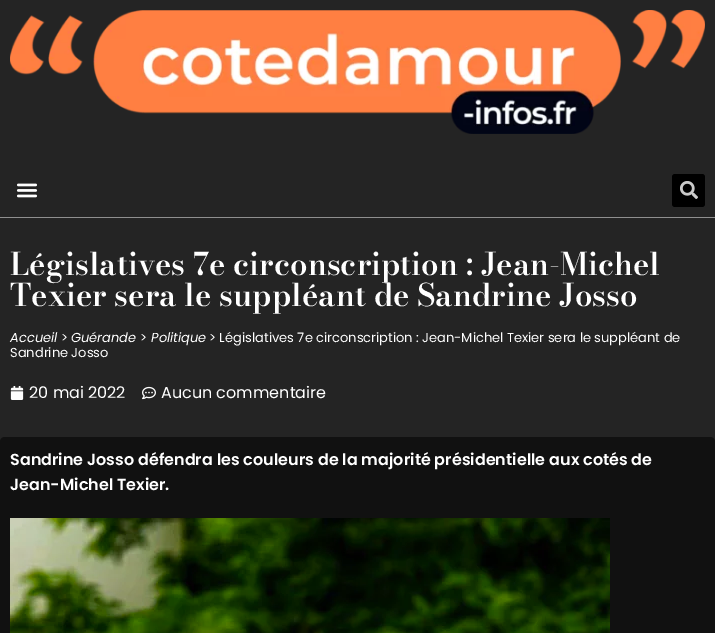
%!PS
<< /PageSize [715 633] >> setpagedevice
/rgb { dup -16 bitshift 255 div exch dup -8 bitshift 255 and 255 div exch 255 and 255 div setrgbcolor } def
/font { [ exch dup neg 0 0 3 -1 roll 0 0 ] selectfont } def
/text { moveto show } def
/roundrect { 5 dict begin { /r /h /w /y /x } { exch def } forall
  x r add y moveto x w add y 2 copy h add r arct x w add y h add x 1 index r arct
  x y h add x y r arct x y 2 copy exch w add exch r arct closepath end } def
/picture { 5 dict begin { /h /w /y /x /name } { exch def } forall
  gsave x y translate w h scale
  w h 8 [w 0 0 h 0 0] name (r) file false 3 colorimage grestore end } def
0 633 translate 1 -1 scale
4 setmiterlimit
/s1 { /BodoniModa-SemiBold 31 font 16#FFFFFF rgb } def
/s2 { /Poppins-Italic 13 font 16#FFFFFF rgb } def
/s3 { /Poppins-Regular 13 font 16#FFFFFF rgb } def
/s4 { /Poppins-Regular 16 font 16#FFFFFF rgb } def
/s5 { /Poppins-SemiBold 16 font 16#FFFFFF rgb } def
16#242424 rgb
0 0 715 633 rectfill
(pic1.raw) 10 10 695 124 picture
16#8F8F8F rgb
0 217 715 1 rectfill
(pic2.raw) 16 183 22 15 picture
16#000000 rgb
672 174 33 33 3 roundrect fill
(pic3.raw) 680 181 18 18 picture
s1
(Législatives 7e circonscription : Jean-Michel) 10 275 text
(Texier sera le suppléant de Sandrine Josso) 10 306 text
s2
(Accueil) 10 342 text
s3
(>) 61 342 text
s2
(Guérande) 71 342 text
s3
(>) 140 342 text
s2
(Politique) 151 342 text
s3
(> Législatives 7e circonscription : Jean-Michel Texier sera le suppléant de) 209 342 text
(Sandrine Josso) 10 357 text
(pic4.raw) 10 386 14 14 picture
s4
(20 mai 2022) 29 398 text
(pic5.raw) 142 386 14 14 picture
(Aucun commentaire) 161 398 text
16#111111 rgb
5 437 moveto 710 437 lineto 713 437 715 439 715 442 curveto 715 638 lineto 0 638 lineto 0 442 lineto 0 439 2 437 5 437 curveto closepath fill
s5
(Sandrine Josso défendra les couleurs de la majorité présidentielle aux cotés de) 10 465 text
(Jean-Michel Texier.) 10 490 text
(pic6.raw) 10 518 600 115 picture
showpage
